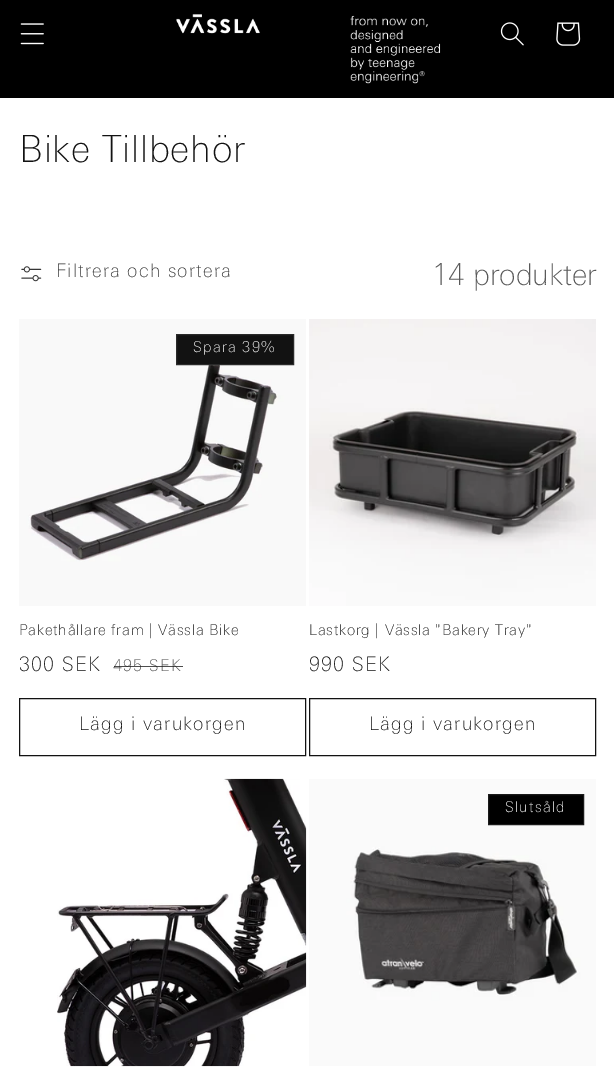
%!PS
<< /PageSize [614 1082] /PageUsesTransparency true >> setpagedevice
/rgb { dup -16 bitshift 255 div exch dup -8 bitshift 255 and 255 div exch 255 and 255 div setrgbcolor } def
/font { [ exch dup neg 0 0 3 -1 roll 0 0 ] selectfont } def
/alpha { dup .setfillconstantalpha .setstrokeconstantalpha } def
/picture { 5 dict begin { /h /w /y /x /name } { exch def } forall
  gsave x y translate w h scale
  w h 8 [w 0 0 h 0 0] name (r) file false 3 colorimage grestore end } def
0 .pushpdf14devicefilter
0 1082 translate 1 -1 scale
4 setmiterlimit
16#FFFFFF rgb
0 0 614 1082 rectfill
16#000000 rgb
0 0 614 98 rectfill
(pic1.raw) 20 23 24 22 picture
(pic2.raw) 176 14 265 70 picture
(pic3.raw) 500 22 24 24 picture
(pic4.raw) 556 22 25 24 picture
/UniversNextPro-Thin 37.5 font
16#121212 rgb
19 162 moveto 0.75 0 (Bike Tillbehör) ashow
(pic5.raw) 21 266 21 16 picture
/UniversNextPro-Thin 18.75 font
16#363636 rgb
56 277 moveto 1.25 0 (Filtrera och sortera) ashow
/UniversNextPro-Thin 30 font
16#595959 rgb
432 285 moveto -0.1 0 (14 produkter) ashow
(pic6.raw) 19 319 287 287 picture
16#121212 rgb
176.5 334.5 moveto 293.5 334.5 lineto 293.5 364.5 lineto 176.5 364.5 lineto closepath gsave fill grestore
16#2A2A2A rgb
stroke
/UniversNextPro-Thin 15 font
16#FFFFFF rgb
193 352 moveto 1.25 0 (Spara 39%) ashow
16#121212 rgb
19 635 moveto 0.75 0 (Pakethållare fram | Vässla Bike) ashow
/UniversNextPro-Thin 20 font
19 671 moveto 1.25 0 (300 SEK) ashow
/UniversNextPro-Thin 16.25 font
16#4D4D4D rgb
113 671 moveto 1.25 0 (495 SEK) ashow
0.75 alpha
16#121212 rgb
114 666 69 1 rectfill
1 alpha
19.5 698.5 286 57 rectstroke
/UniversNextPro-Thin 18.75 font
79 730 moveto 1.25 0 (Lägg i varukorgen) ashow
(pic7.raw) 309 319 287 287 picture
/UniversNextPro-Thin 15 font
309 635 moveto 0.75 0 (Lastkorg | Vässla "Bakery Tray") ashow
/UniversNextPro-Thin 20 font
309 671 moveto 1.25 0 (990 SEK) ashow
309.5 698.5 286 57 rectstroke
/UniversNextPro-Thin 18.75 font
369 730 moveto 1.25 0 (Lägg i varukorgen) ashow
(pic8.raw) 19 778 288 289 picture
(pic9.raw) 309 779 287 287 picture
16#000000 rgb
488.5 794.5 moveto 583.5 794.5 lineto 583.5 824.5 lineto 488.5 824.5 lineto closepath gsave fill grestore
16#1A1A1A rgb
stroke
/UniversNextPro-Thin 15 font
16#FFFFFF rgb
505 812 moveto 1.25 0 (Slutsåld) ashow
.poppdf14devicefilter showpage
